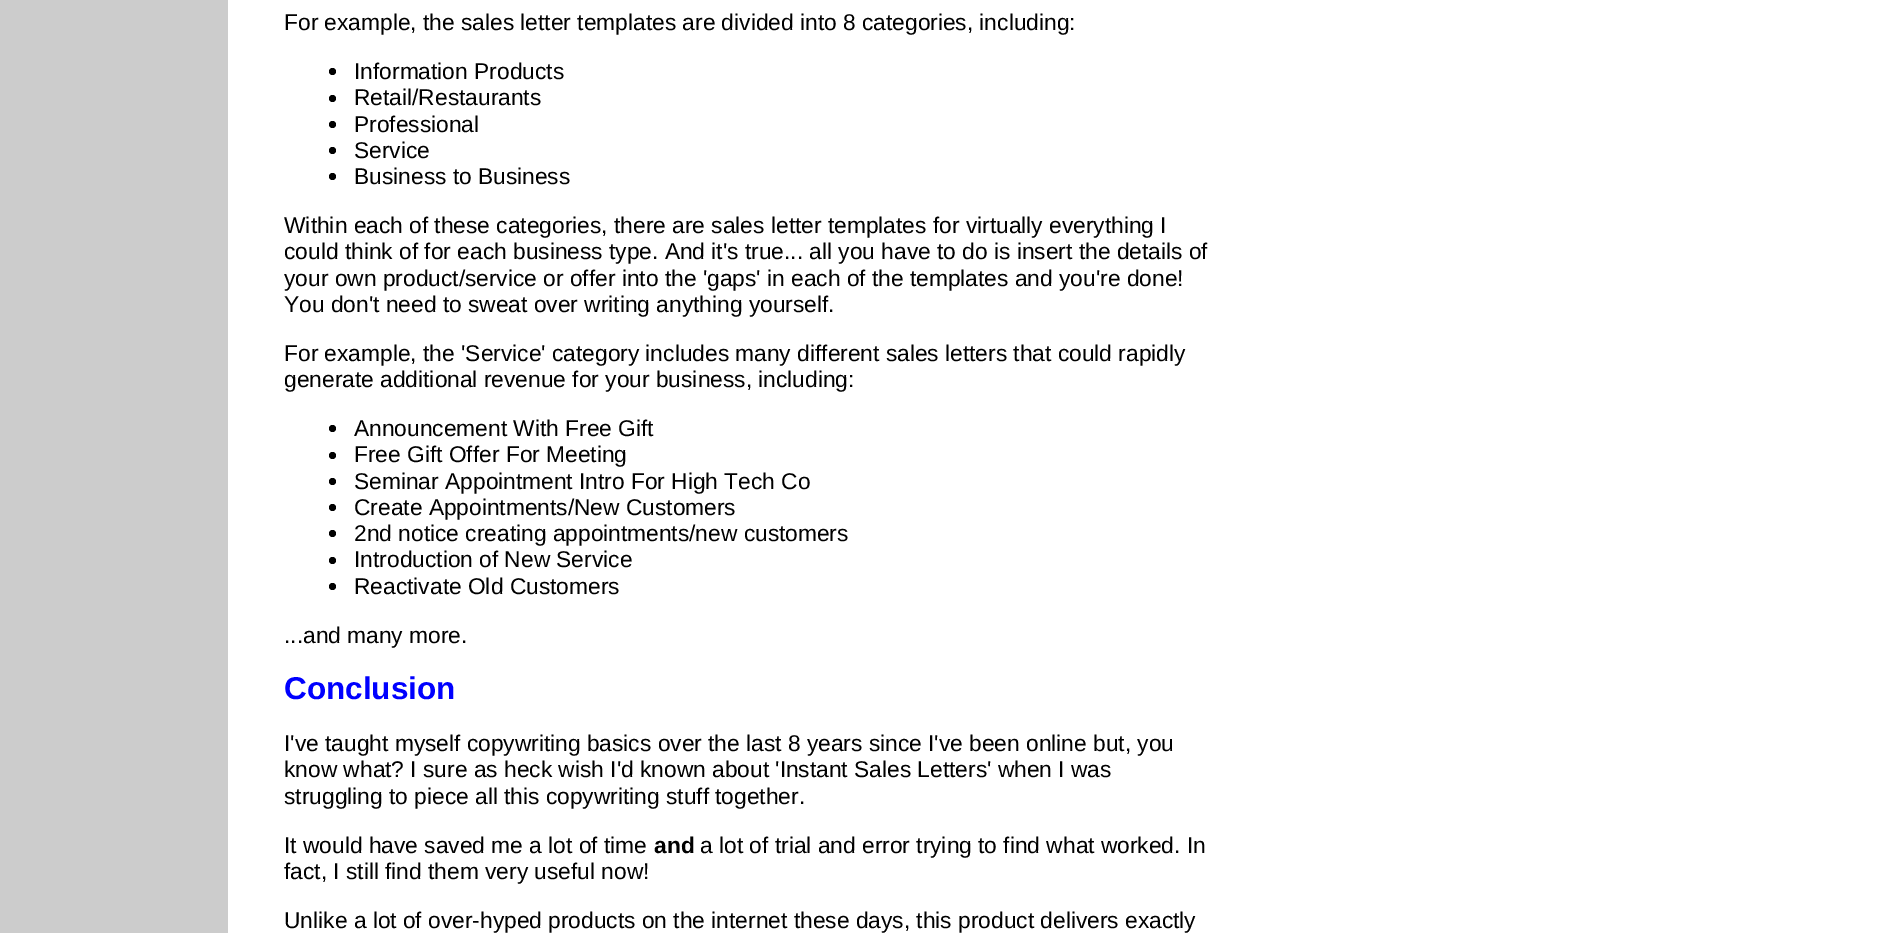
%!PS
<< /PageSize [1878 933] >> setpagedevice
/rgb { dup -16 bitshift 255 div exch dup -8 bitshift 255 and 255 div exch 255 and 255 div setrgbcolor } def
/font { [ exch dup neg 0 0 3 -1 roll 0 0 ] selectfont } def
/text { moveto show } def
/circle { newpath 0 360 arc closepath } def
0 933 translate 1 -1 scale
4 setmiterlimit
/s1 { /LiberationSans-Regular 22.75 font 16#000000 rgb } def
/s2 { /LiberationSans-Bold 31.5 font 16#0000FF rgb } def
/s3 { /LiberationSans-Bold 22.75 font 16#000000 rgb } def
16#FFFFFF rgb
0 0 1878 933 rectfill
16#CCCCCC rgb
0 0 228 933 rectfill
s1
(For example, the sales letter templates are divided into 8 categories, including:) 284 30 text
332.5 71.5 3.5 circle fill
(Information Products) 354 79 text
332.5 98.5 3.5 circle fill
(Retail/Restaurants) 354 105 text
332.5 124.5 3.5 circle fill
(Professional) 354 132 text
332.5 150.5 3.5 circle fill
(Service) 354 158 text
332.5 176.5 3.5 circle fill
(Business to Business) 354 184 text
(Within each of these categories, there are sales letter templates for virtually everything I) 284 233 text
(could think of for each business type. And it's true... all you have to do is insert the details of) 284 259 text
(your own product/service or offer into the 'gaps' in each of the templates and you're done!) 284 286 text
(You don't need to sweat over writing anything yourself.) 284 312 text
(For example, the 'Service' category includes many different sales letters that could rapidly) 284 361 text
(generate additional revenue for your business, including:) 284 387 text
332.5 428.5 3.5 circle fill
(Announcement With Free Gift) 354 436 text
332.5 455.5 3.5 circle fill
(Free Gift Offer For Meeting) 354 462 text
332.5 481.5 3.5 circle fill
(Seminar Appointment Intro For High Tech Co) 354 489 text
332.5 507.5 3.5 circle fill
(Create Appointments/New Customers) 354 515 text
332.5 533.5 3.5 circle fill
(2nd notice creating appointments/new customers) 354 541 text
332.5 560.5 3.5 circle fill
(Introduction of New Service) 354 567 text
332.5 586.5 3.5 circle fill
(Reactivate Old Customers) 354 594 text
(...and many more.) 284 643 text
s2
(Conclusion) 284 699 text
s1
(I've taught myself copywriting basics over the last 8 years since I've been online but, you) 284 751 text
(know what? I sure as heck wish I'd known about 'Instant Sales Letters' when I was) 284 777 text
(struggling to piece all this copywriting stuff together.) 284 804 text
(It would have saved me a lot of time) 284 853 text
s3
(and) 654 853 text
s1
(a lot of trial and error trying to find what worked. In) 700 853 text
(fact, I still find them very useful now!) 284 879 text
(Unlike a lot of over-hyped products on the internet these days, this product delivers exactly) 284 928 text
showpage
